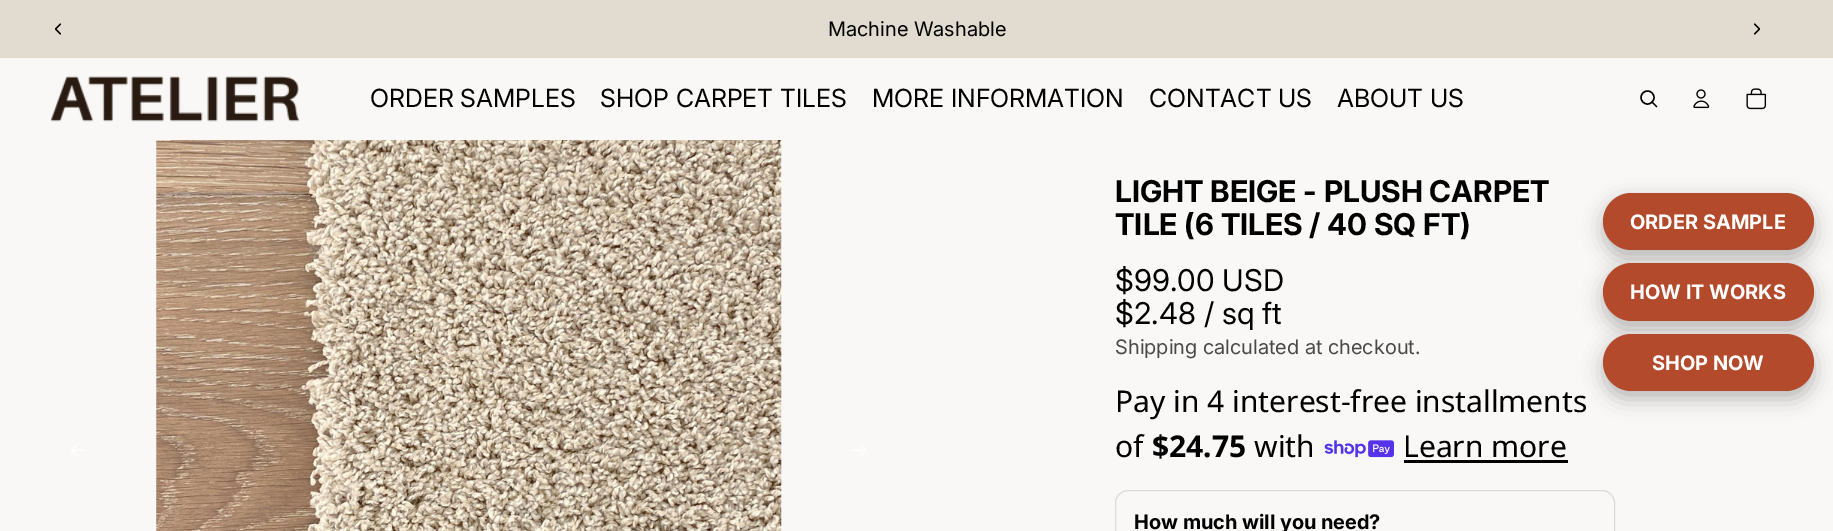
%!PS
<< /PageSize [1833 531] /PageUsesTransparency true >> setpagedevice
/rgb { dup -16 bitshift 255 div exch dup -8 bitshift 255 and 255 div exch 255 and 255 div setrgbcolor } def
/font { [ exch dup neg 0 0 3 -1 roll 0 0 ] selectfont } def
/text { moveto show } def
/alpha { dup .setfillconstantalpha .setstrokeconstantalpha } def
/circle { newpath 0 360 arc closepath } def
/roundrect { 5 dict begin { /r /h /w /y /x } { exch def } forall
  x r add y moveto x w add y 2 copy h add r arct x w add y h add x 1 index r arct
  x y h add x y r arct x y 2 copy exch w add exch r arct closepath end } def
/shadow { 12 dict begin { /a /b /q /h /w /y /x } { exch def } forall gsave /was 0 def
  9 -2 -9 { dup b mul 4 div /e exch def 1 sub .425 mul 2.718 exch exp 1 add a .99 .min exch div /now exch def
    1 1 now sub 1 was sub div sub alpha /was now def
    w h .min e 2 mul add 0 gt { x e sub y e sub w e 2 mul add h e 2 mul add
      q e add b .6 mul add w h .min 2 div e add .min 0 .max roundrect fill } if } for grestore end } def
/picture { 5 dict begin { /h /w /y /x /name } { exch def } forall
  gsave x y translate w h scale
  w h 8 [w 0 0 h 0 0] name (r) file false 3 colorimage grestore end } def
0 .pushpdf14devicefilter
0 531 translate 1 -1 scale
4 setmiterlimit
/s1 { /Inter-Regular 20 font 16#000000 rgb } def
/s2 { /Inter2-Regular 25 font 16#000000 rgb } def
/s3 { /Inter-Bold 30 font 16#000000 rgb } def
/s4 { /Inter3-Regular 30 font 16#000000 rgb } def
/s5 { /Inter-Regular 20 font 16#4B4A4A rgb } def
/s6 { /NotoSans-Regular 30 font 16#000000 rgb } def
/s7 { /NotoSans-Bold 30 font 16#000000 rgb } def
/s8 { /Inter2-Bold 20 font 16#000000 rgb } def
/s9 { /Inter2-Bold 20 font 16#FFFFFF rgb } def
16#F9F8F6 rgb
0 0 1833 531 rectfill
16#E1DBD0 rgb
0 0 1833 58 rectfill
s1
(Machine Washable) 828 36 text
1.2 setlinewidth
1 setlinecap
1 setlinejoin
60.5 24 moveto 55.5 29 lineto 60.5 34 lineto stroke
1754.5 24 moveto 1759.5 29 lineto 1754.5 34 lineto stroke
(pic1.raw) 50 76 250 46 picture
s2
(ORDER SAMPLES) 370 107 text
(SHOP CARPET TILES) 600 107 text
(MORE INFORMATION) 872 107 text
(CONTACT US) 1149 107 text
(ABOUT US) 1337 107 text
1.4 setlinewidth
0 setlinecap
0 setlinejoin
1647.5 97.5 6.5 circle stroke
1 setlinecap
1 setlinejoin
1652 102 moveto 1656.5 106.5 lineto stroke
(pic2.raw) 1693 89 17 20 picture
(pic3.raw) 1746 88 21 22 picture
(pic4.raw) 156 140 626 391 picture
16#FFFFFF rgb
1.2 setlinewidth
85.5 450 moveto 71.5 450 lineto 71.5 450 moveto 76.5 445 lineto 71.5 450 moveto 76.5 455 lineto stroke
851.5 450 moveto 866 450 lineto 866 450 moveto 861 445 lineto 866 450 moveto 861 455 lineto stroke
s3
(LIGHT BEIGE - PLUSH CARPET) 1115 202 text
(TILE \(6 TILES / 40 SQ FT\)) 1115 235 text
s4
($99.00 USD) 1115 291 text
($2.48 / sq ft) 1115 324 text
s5
(Shipping calculated at checkout.) 1115 354 text
s6
(Pay in 4 interest-free installments) 1115 412 text
(of) 1115 457 text
s7
($24.75) 1152 457 text
s6
(with) 1254 457 text
(pic5.raw) 1324 440 70 18 picture
(Learn more) 1403 457 text
1404 460 164 3 rectfill
16#DBDAD8 rgb
1 setlinewidth
0 setlinecap
0 setlinejoin
1115.5 490.5 499 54 12.5 roundrect stroke
s8
(How much will you need?) 1134 529 text
1603 200 211 58 29 10 0.25 shadow
16#B24A2B rgb
1603 193 211 57 28.5 roundrect fill
s9
(ORDER SAMPLE) 1630 229 text
16#000000 rgb
1603 270 211 59 29.5 10 0.25 shadow
16#B24A2B rgb
1603 263 211 58 29 roundrect fill
s9
(HOW IT WORKS) 1630 299 text
16#000000 rgb
1603 341 211 58 29 10 0.25 shadow
16#B24A2B rgb
1603 334 211 57 28.5 roundrect fill
s9
(SHOP NOW) 1652 370 text
.poppdf14devicefilter showpage
